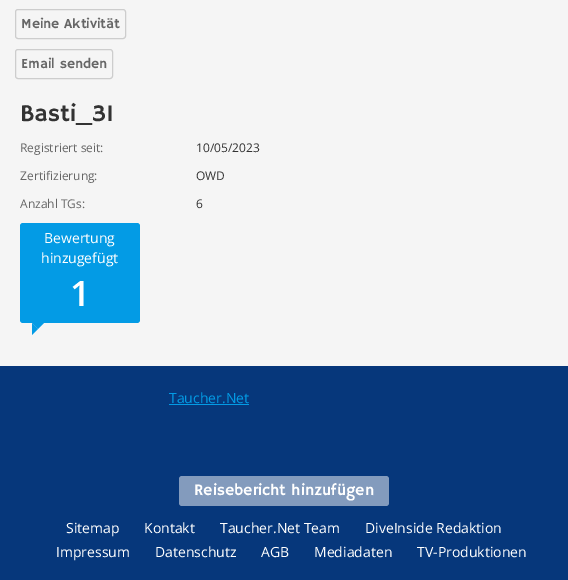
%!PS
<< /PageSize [568 580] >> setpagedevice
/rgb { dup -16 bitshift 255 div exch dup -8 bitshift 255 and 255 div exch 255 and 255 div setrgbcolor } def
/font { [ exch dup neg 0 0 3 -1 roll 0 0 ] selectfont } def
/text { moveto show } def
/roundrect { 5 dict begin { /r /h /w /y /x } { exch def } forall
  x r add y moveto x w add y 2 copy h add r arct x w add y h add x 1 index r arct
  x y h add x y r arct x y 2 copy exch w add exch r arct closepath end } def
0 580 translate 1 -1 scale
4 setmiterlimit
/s1 { /HammersmithOne-Regular 14 font 16#666666 rgb } def
/s2 { /HammersmithOne-Regular 24 font 16#333333 rgb } def
/s3 { /OpenSans-Regular 12 font 16#666666 rgb } def
/s4 { /OpenSans-Regular 12 font 16#333333 rgb } def
/s5 { /OpenSans-Regular 14 font 16#FFFFFF rgb } def
/s6 { /OpenSans-SemiBold 35 font 16#FFFFFF rgb } def
/s7 { /OpenSans-Regular 14 font 16#039BE5 rgb } def
/s8 { /HammersmithOne-Regular 16 font 16#FFFFFF rgb } def
16#F5F5F5 rgb
0 0 568 580 rectfill
16#CDCDCD rgb
15.5 9.5 110 29 2.5 roundrect stroke
s1
(Meine Aktivität) 21 28 text
16#CDCDCD rgb
15.5 49.5 97 29 2.5 roundrect stroke
s1
(Email senden) 21 68 text
s2
(Basti_31) 20 121 text
s3
(Registriert seit:) 20 152 text
s4
(10/05/2023) 196 152 text
s3
(Zertifizierung:) 20 180 text
s4
(OWD) 196 180 text
s3
(Anzahl TGs:) 20 208 text
s4
(6) 196 208 text
16#039BE5 rgb
20 223 120 100 3 roundrect fill
s5
(Bewertung) 44 243 text
(hinzugefügt) 41 263 text
s6
(1) 70 306 text
16#039BE5 rgb
32 323 moveto 44 323 lineto 38 329 lineto closepath fill
32 335 moveto 32 323 lineto 38 329 lineto closepath fill
16#06377B rgb
0 366 568 214 rectfill
s7
(Taucher.Net) 169 403 text
169 404 80 1 rectfill
16#839BBD rgb
179 476 210 30 3 roundrect fill
s8
(Reisebericht hinzufügen) 194 495 text
s5
(Sitemap) 66 533 text
(Kontakt) 144 533 text
(Taucher.Net Team) 220 533 text
(DiveInside Redaktion) 365 533 text
(Impressum) 56 557 text
(Datenschutz) 155 557 text
(AGB) 261 557 text
(Mediadaten) 314 557 text
(TV-Produktionen) 417 557 text
showpage
